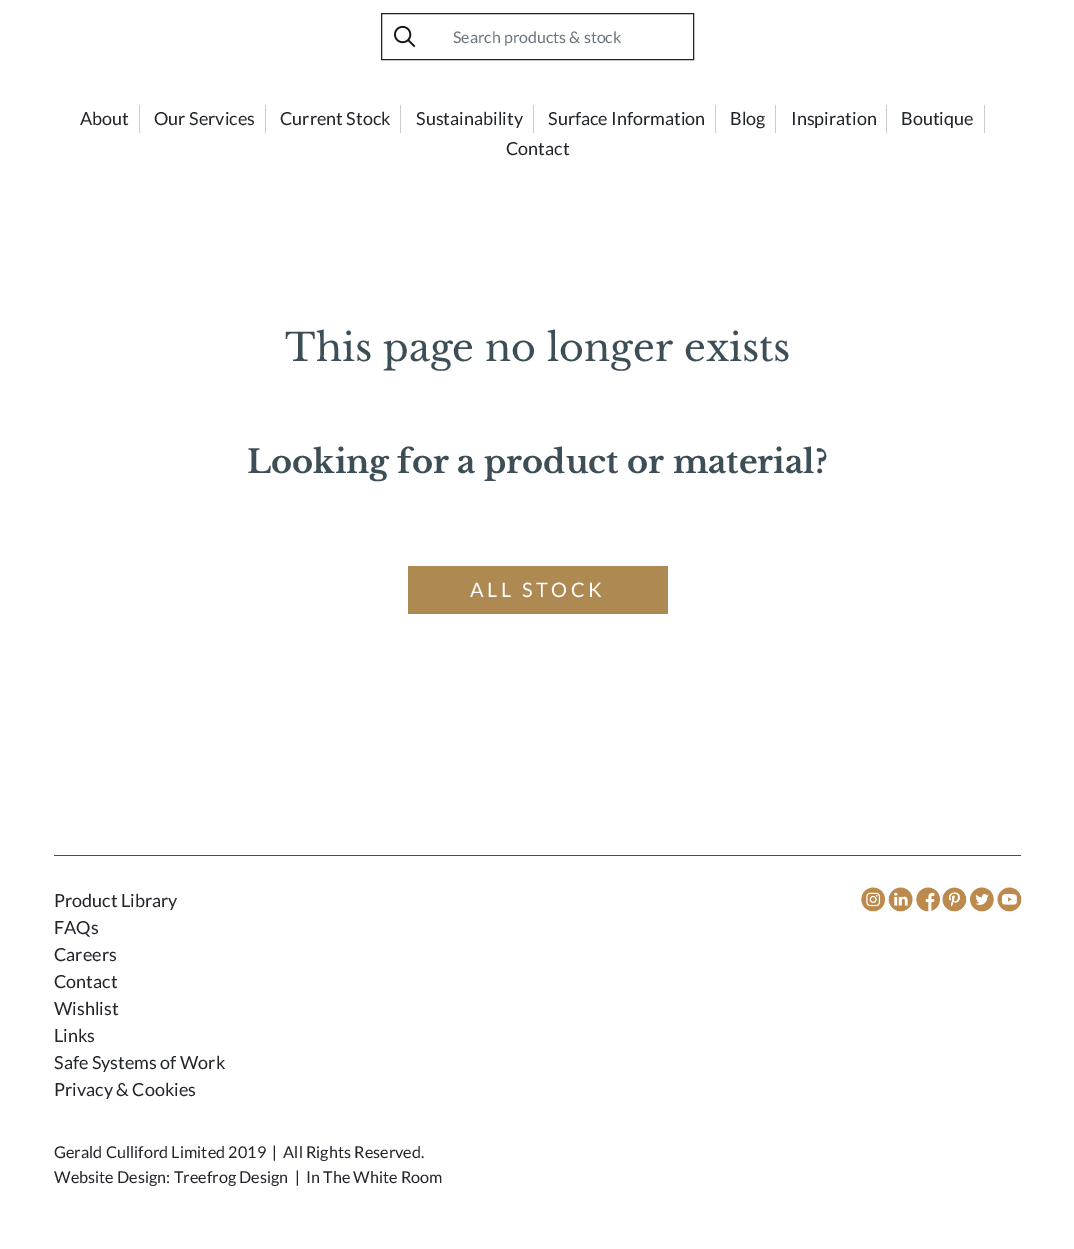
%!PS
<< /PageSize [1074 1249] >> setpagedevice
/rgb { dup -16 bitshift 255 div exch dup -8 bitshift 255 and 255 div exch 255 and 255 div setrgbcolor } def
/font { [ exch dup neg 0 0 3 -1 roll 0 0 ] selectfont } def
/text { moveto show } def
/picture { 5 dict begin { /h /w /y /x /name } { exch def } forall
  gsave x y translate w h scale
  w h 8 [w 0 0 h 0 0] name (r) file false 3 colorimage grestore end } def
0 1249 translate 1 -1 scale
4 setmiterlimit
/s1 { /Lato-Regular 16 font 16#6C757D rgb } def
/s2 { /Lato-Regular 18 font 16#23252C rgb } def
/s3 { /LibreBaskerville-Regular 38 font 16#3D4E56 rgb } def
/s4 { /LibreBaskerville-Bold 32 font 16#3D4E56 rgb } def
/s5 { /Lato-Regular 16.25 font 16#23252C rgb } def
16#FFFFFF rgb
0 0 1074 1249 rectfill
16#222222 rgb
381.5 13.5 312 46 rectstroke
(pic1.raw) 394 25 22 23 picture
s1
(Search products & stock) 453 43 text
16#CCCCCC rgb
139 105 1 28 rectfill
s2
(About) 80 125 text
16#CCCCCC rgb
265 105 1 28 rectfill
s2
(Our Services) 154 125 text
16#CCCCCC rgb
400 105 1 28 rectfill
s2
(Current Stock) 280 125 text
16#CCCCCC rgb
533 105 1 28 rectfill
s2
(Sustainability) 416 125 text
16#CCCCCC rgb
715 105 1 28 rectfill
s2
(Surface Information) 548 125 text
16#CCCCCC rgb
775 105 1 28 rectfill
s2
(Blog) 730 125 text
16#CCCCCC rgb
886 105 1 28 rectfill
s2
(Inspiration) 791 125 text
16#CCCCCC rgb
984 105 1 28 rectfill
s2
(Boutique) 901 125 text
(Contact) 506 155 text
s3
(This page no longer exists) 285 361 text
s4
(Looking for a product or material?) 247 473 text
16#AE8952 rgb
408 566 260 48 rectfill
/Lato-Regular 20 font
16#FFFFFF rgb
470 597 moveto 3.5 0 (ALL STOCK) ashow
16#444F56 rgb
54 855 967 1 rectfill
s2
(Product Library) 54 907 text
(FAQs) 54 934 text
(Careers) 54 961 text
(Contact) 54 988 text
(Wishlist) 54 1015 text
(Links) 54 1042 text
(Safe Systems of Work) 54 1069 text
(Privacy & Cookies) 54 1096 text
s5
(Gerald Culliford Limited 2019  |  All Rights Reserved.) 54 1158 text
(Website Design: Treefrog Design) 54 1183 text
(|) 295 1183 text
(In The White Room) 306 1183 text
(pic2.raw) 861 887 24 25 picture
(pic3.raw) 888 887 25 25 picture
(pic4.raw) 916 887 24 25 picture
(pic5.raw) 942 887 25 25 picture
(pic6.raw) 970 887 24 25 picture
(pic7.raw) 997 887 25 25 picture
showpage
